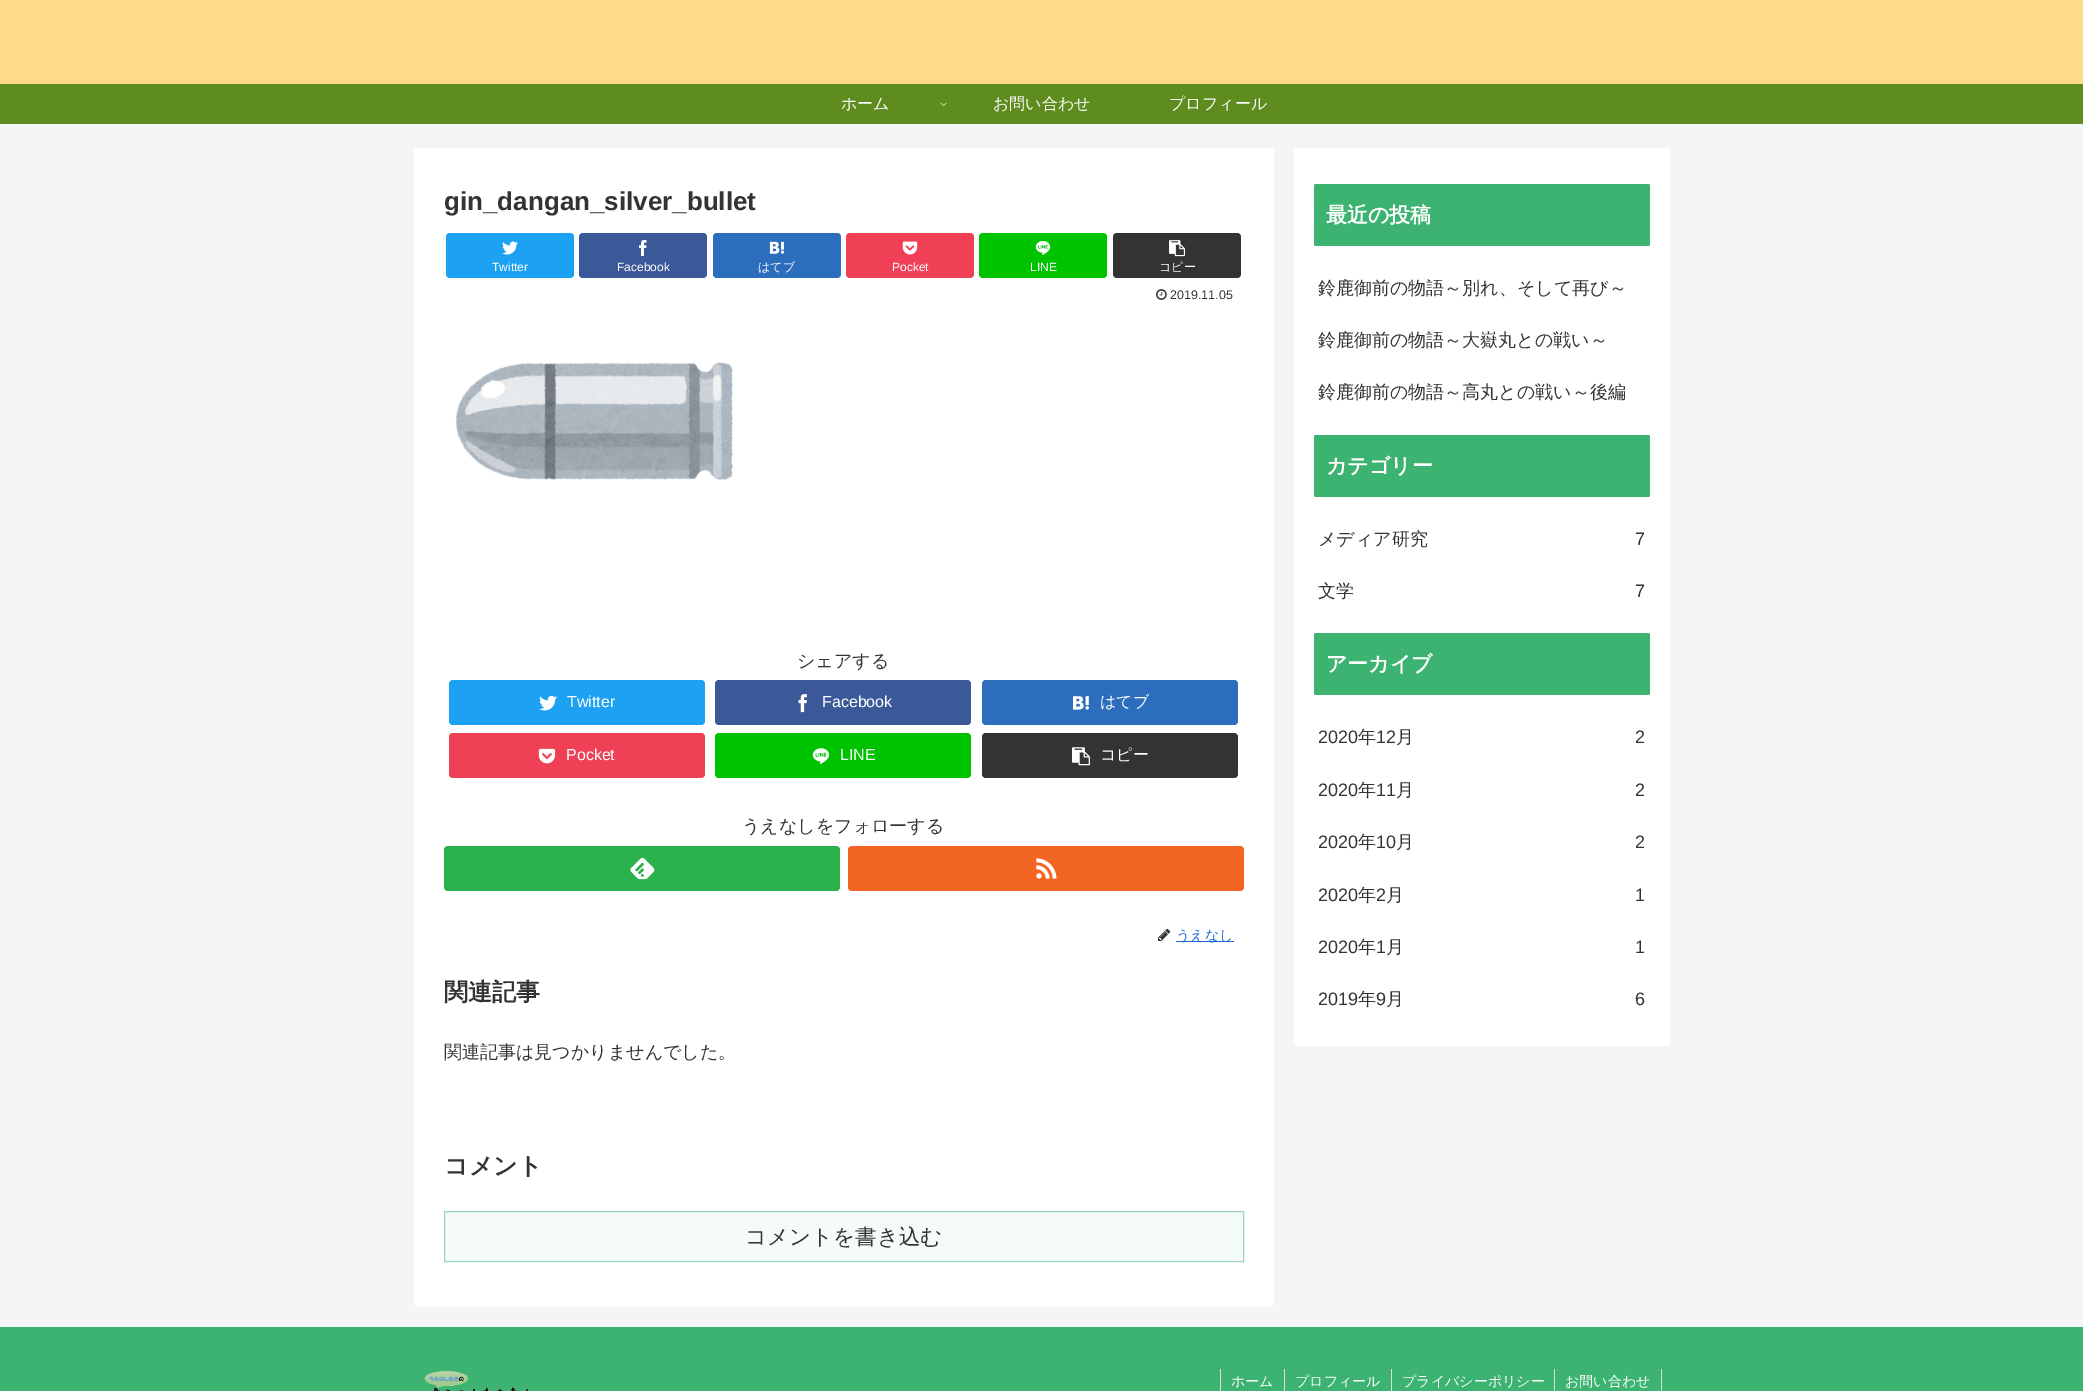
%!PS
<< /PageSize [2083 1391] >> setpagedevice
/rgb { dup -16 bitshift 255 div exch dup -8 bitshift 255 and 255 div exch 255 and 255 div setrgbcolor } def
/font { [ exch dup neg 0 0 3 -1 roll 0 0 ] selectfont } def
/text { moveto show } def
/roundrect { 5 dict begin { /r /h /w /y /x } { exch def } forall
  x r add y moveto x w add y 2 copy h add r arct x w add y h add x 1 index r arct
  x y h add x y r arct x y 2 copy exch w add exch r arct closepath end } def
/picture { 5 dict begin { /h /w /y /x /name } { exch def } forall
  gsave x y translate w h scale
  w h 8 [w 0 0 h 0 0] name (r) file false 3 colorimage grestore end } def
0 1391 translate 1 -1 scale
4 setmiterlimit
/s1 { /WenQuanYiZenHei-Medium 16 font 16#FFFFFF rgb } def
/s2 { /LiberationSans-Bold 26 font 16#333333 rgb } def
/s3 { /LiberationSans-Regular 12 font 16#FFFFFF rgb } def
/s4 { /WenQuanYiZenHei-Medium 12 font 16#FFFFFF rgb } def
/s5 { /LiberationSans-Regular 12.5 font 16#333333 rgb } def
/s6 { /WenQuanYiZenHei-Medium 18 font 16#333333 rgb } def
/s7 { /LiberationSans-Regular 16 font 16#FFFFFF rgb } def
/s8 { /WenQuanYiZenHei-Medium 14 font 16#1967D2 rgb } def
/s9 { /WenQuanYiZenHei-Bold 24 font 16#333333 rgb } def
/s10 { /WenQuanYiZenHei-Medium 21.5 font 16#333333 rgb } def
/s11 { /WenQuanYiZenHei-Bold 21 font 16#FFFFFF rgb } def
/s12 { /LiberationSans-Regular 18 font 16#333333 rgb } def
/s13 { /WenQuanYiZenHei-Medium 14 font 16#FFFFFF rgb } def
16#F4F5F7 rgb
0 0 2083 1391 rectfill
16#FFDB89 rgb
0 0 2083 84 rectfill
16#5E8C1E rgb
0 84 2083 40 rectfill
s1
(ホーム) 841 109 text
(pic1.raw) 940 102 7 5 picture
(お問い合わせ) 993 109 text
(プロフィール) 1169 109 text
414 148 860 1159 4 roundrect fill
s2
(gin_dangan_silver_bullet) 444 210 text
16#1DA1F2 rgb
446 233 128 45 4 roundrect fill
(pic2.raw) 502 241 16 14 picture
s3
(Twitter) 492 271 text
16#3B5998 rgb
579 233 128 45 4 roundrect fill
(pic3.raw) 639 240 8 16 picture
s3
(Facebook) 617 271 text
16#2C6EBD rgb
713 233 128 45 4 roundrect fill
(pic4.raw) 769 241 16 13 picture
s4
(はてブ) 758 271 text
16#EF4056 rgb
846 233 128 45 4 roundrect fill
(pic5.raw) 902 241 16 14 picture
s3
(Pocket) 892 271 text
16#00C300 rgb
979 233 128 45 4 roundrect fill
(pic6.raw) 1035 241 16 14 picture
s3
(LINE) 1030 271 text
16#333333 rgb
1113 233 128 45 4 roundrect fill
(pic7.raw) 1169 240 16 17 picture
s4
(コピー) 1159 271 text
(pic8.raw) 1156 289 11 11 picture
s5
(2019.11.05) 1170 299 text
(pic9.raw) 455 362 279 119 picture
s6
(シェアする) 797 667 text
16#1DA1F2 rgb
449 680 256 45 4 roundrect fill
(pic10.raw) 539 695 18 16 picture
s7
(Twitter) 567 707 text
16#3B5998 rgb
715 680 256 45 4 roundrect fill
(pic11.raw) 798 694 9 19 picture
s7
(Facebook) 822 707 text
16#2C6EBD rgb
982 680 256 45 4 roundrect fill
(pic12.raw) 1073 696 16 14 picture
s1
(はてブ) 1100 707 text
16#EF4056 rgb
449 733 256 45 4 roundrect fill
(pic13.raw) 538 748 18 16 picture
s7
(Pocket) 566 760 text
16#00C300 rgb
715 733 256 45 4 roundrect fill
(pic14.raw) 812 748 18 16 picture
s7
(LINE) 840 760 text
16#333333 rgb
982 733 256 45 4 roundrect fill
(pic15.raw) 1072 747 18 19 picture
s1
(コピー) 1100 760 text
s6
(うえなしをフォローする) 742 832 text
16#2BB24C rgb
444 846 396 45 4 roundrect fill
(pic16.raw) 630 857 25 23 picture
16#F26522 rgb
848 846 396 45 4 roundrect fill
(pic17.raw) 1036 858 21 21 picture
(pic18.raw) 1158 928 13 13 picture
16#1967D2 rgb
1176 941 58 1 rectfill
s8
(うえなし) 1176 940 text
s9
(関連記事) 444 1000 text
s6
(関連記事は見つかりませんでした。) 444 1058 text
s9
(コメント) 444 1174 text
16#F5FBF8 rgb
444.5 1211.5 moveto 1243.5 1211.5 lineto 1243.5 1261.5 lineto 444.5 1261.5 lineto closepath gsave fill grestore
16#99D7B5 rgb
stroke
s10
(コメントを書き込む) 745 1244 text
16#FFFFFF rgb
1294 148 376 898 4 roundrect fill
16#3CB371 rgb
1314 184 336 62 2 roundrect fill
s11
(最近の投稿) 1326 222 text
s6
(鈴鹿御前の物語～別れ、そして再び～) 1318 294 text
(鈴鹿御前の物語～大嶽丸との戦い～) 1318 346 text
(鈴鹿御前の物語～高丸との戦い～後編) 1318 398 text
16#3CB371 rgb
1314 435 336 62 2 roundrect fill
s11
(カテゴリー) 1326 473 text
s6
(メディア研究) 1318 545 text
s12
(7) 1635 545 text
s6
(文学) 1318 597 text
s12
(7) 1635 597 text
16#3CB371 rgb
1314 633 336 62 2 roundrect fill
s11
(アーカイブ) 1326 671 text
s12
(2020) 1318 743 text
s6
(年) 1358 743 text
s12
(12) 1376 743 text
s6
(月) 1396 743 text
s12
(2) 1635 743 text
(2020) 1318 796 text
s6
(年) 1358 796 text
s12
(11) 1376 796 text
s6
(月) 1396 796 text
s12
(2) 1635 796 text
(2020) 1318 848 text
s6
(年) 1358 848 text
s12
(10) 1376 848 text
s6
(月) 1396 848 text
s12
(2) 1635 848 text
(2020) 1318 901 text
s6
(年) 1358 901 text
s12
(2) 1376 901 text
s6
(月) 1386 901 text
s12
(1) 1635 901 text
(2020) 1318 953 text
s6
(年) 1358 953 text
s12
(1) 1376 953 text
s6
(月) 1386 953 text
s12
(1) 1635 953 text
(2019) 1318 1005 text
s6
(年) 1358 1005 text
s12
(9) 1376 1005 text
s6
(月) 1386 1005 text
s12
(6) 1635 1005 text
16#3CB371 rgb
0 1327 2083 64 rectfill
(pic19.raw) 424 1370 104 21 picture
16#DDDDDD rgb
1220 1369 1 22 rectfill
s13
(ホーム) 1231 1386 text
16#DDDDDD rgb
1284 1369 1 22 rectfill
s13
(プロフィール) 1295 1386 text
16#DDDDDD rgb
1391 1369 1 22 rectfill
s13
(プライバシーポリシー) 1402 1386 text
16#DDDDDD rgb
1661 1369 1 22 rectfill
1554 1369 1 22 rectfill
s13
(お問い合わせ) 1565 1386 text
showpage
